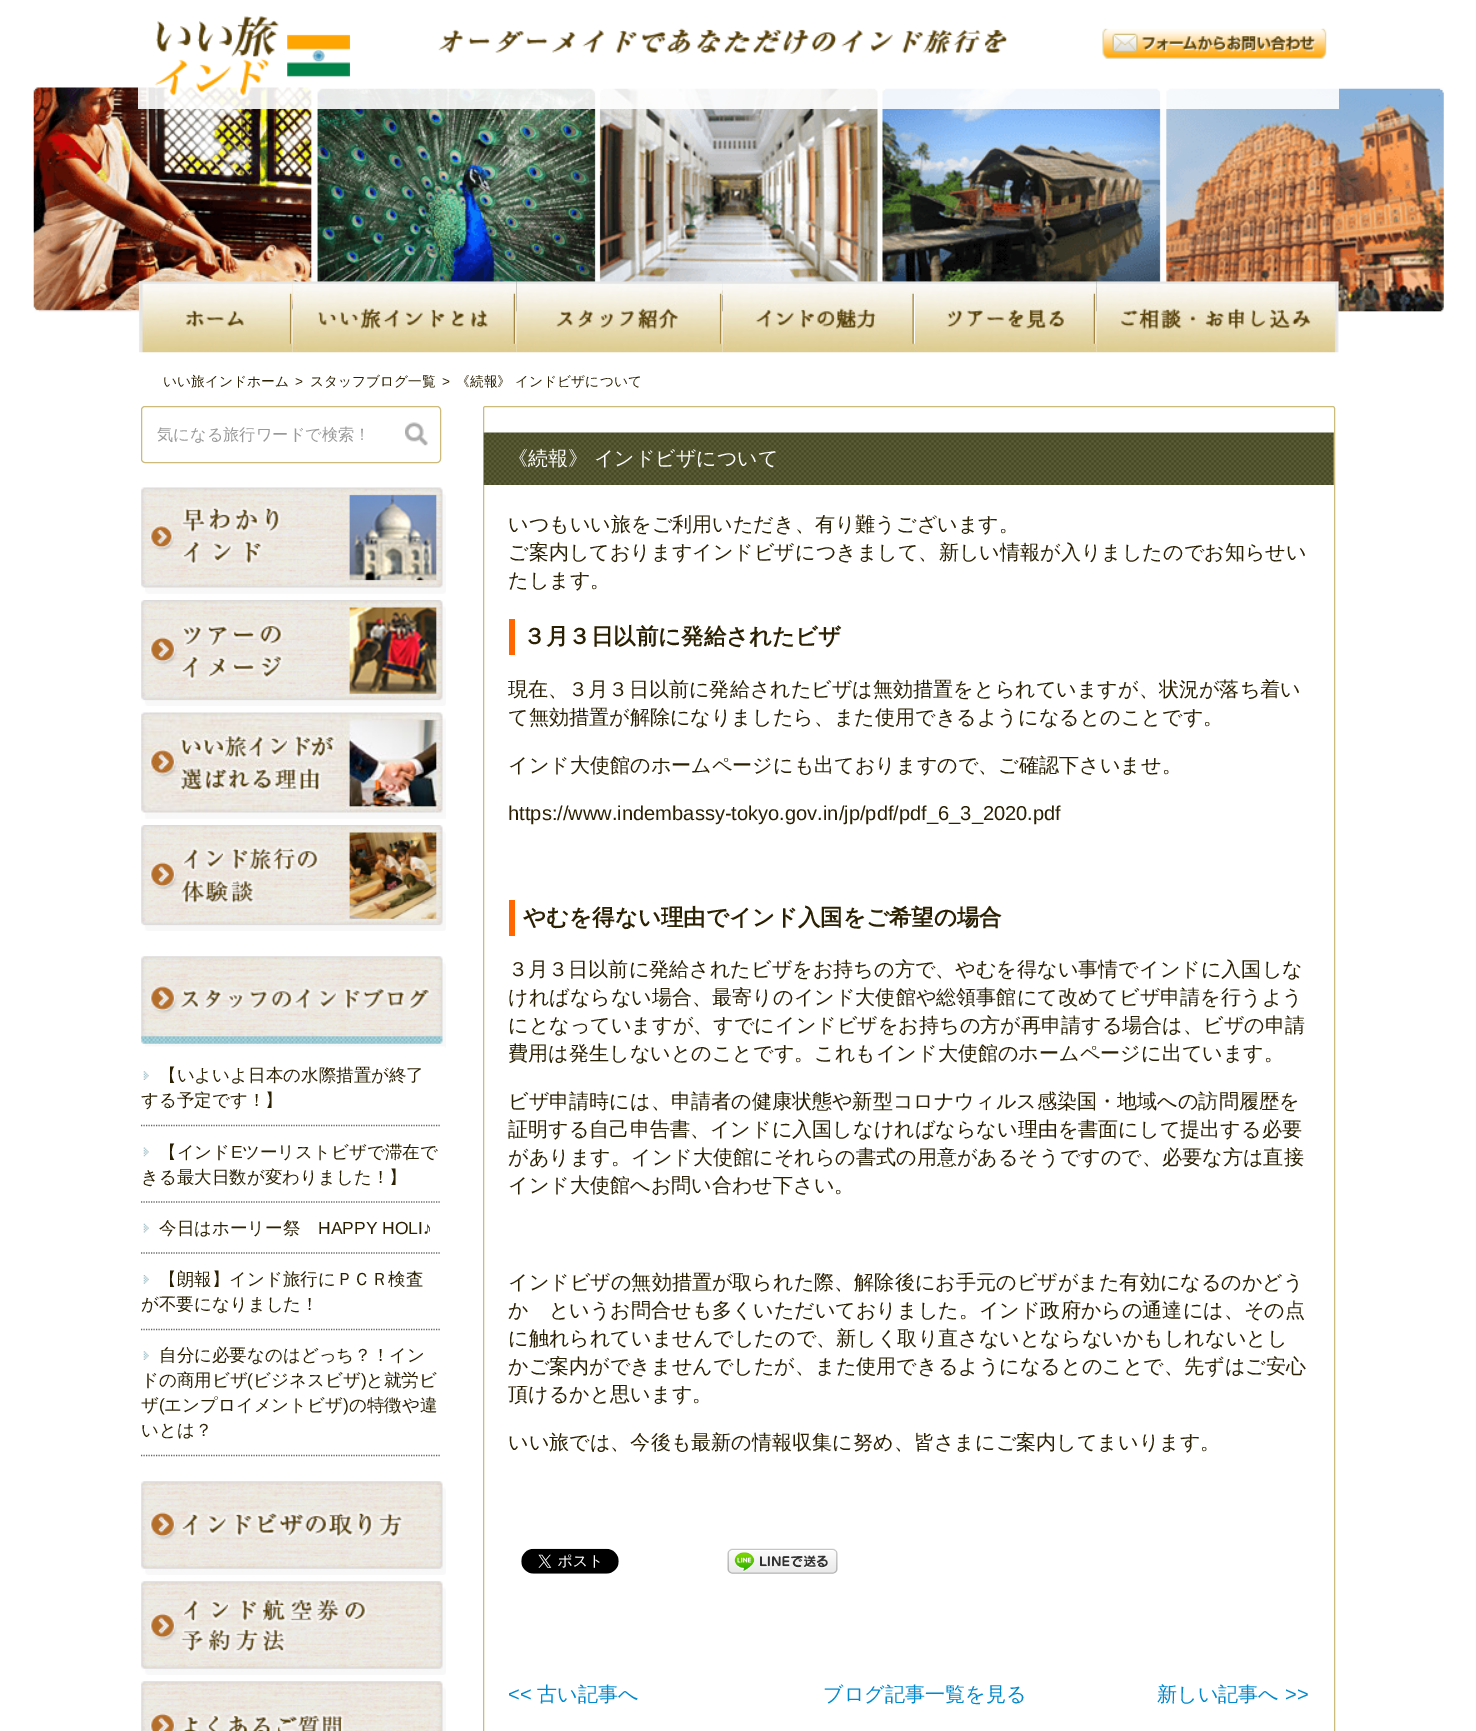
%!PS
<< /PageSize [1476 1731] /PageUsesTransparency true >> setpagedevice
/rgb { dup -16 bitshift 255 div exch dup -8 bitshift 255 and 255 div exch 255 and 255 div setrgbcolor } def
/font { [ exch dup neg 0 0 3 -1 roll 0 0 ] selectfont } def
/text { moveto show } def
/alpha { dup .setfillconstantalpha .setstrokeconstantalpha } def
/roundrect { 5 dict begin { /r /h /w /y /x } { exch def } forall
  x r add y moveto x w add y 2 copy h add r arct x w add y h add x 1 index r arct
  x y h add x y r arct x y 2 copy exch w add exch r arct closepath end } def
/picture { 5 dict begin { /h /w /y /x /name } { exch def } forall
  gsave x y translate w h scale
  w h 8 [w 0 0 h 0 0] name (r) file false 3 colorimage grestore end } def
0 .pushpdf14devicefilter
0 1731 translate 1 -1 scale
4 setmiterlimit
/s1 { /WenQuanYiZenHei-Medium 13.75 font 16#2C2003 rgb } def
/s2 { /LiberationSans-Regular 13.75 font 16#2C2003 rgb } def
/s3 { /WenQuanYiZenHei-Medium 16.25 font 16#999999 rgb } def
/s4 { /WenQuanYiZenHei-Medium 17.5 font 16#2C2003 rgb } def
/s5 { /LiberationSans-Regular 17.5 font 16#2C2003 rgb } def
/s6 { /WenQuanYiZenHei-Medium 20 font 16#FFFFFF rgb } def
/s7 { /WenQuanYiZenHei-Medium 20.1 font 16#2C2003 rgb } def
/s8 { /WenQuanYiZenHei-Bold 22.5 font 16#2C2003 rgb } def
/s9 { /LiberationSans-Regular 20.1 font 16#2C2003 rgb } def
/s10 { /LiberationSans-Regular 20.1 font 16#0088CC rgb } def
/s11 { /WenQuanYiZenHei-Medium 20.1 font 16#0088CC rgb } def
16#FFFFFF rgb
0 0 1476 1731 rectfill
(pic1.raw) 33 87 1411 226 picture
0.9 alpha
138 87 1201 22 rectfill
1 alpha
(pic2.raw) 154 16 196 83 picture
(pic3.raw) 438 28 569 26 picture
(pic4.raw) 1102 28 225 31 picture
(pic5.raw) 138 281 155 72 picture
(pic6.raw) 292 281 225 72 picture
(pic7.raw) 516 281 207 72 picture
(pic8.raw) 722 281 193 72 picture
(pic9.raw) 915 281 182 72 picture
(pic10.raw) 1096 281 243 72 picture
s1
(いい旅インドホーム) 163 386 text
s2
(>) 295 386 text
s1
(スタッフブログ一覧) 310 386 text
s2
(>) 442 386 text
s1
(《続報》 インドビザについて) 456 386 text
16#CCBB7A rgb
141.5 406.5 299 56 3.5 roundrect stroke
s3
(気になる旅行ワードで検索！) 157 440 text
(pic11.raw) 405 422 23 24 picture
(pic12.raw) 141 487 305 107 picture
(pic13.raw) 141 600 305 106 picture
(pic14.raw) 141 712 305 107 picture
(pic15.raw) 141 825 305 106 picture
(pic16.raw) 141 956 305 92 picture
16#666666 rgb
1.2 setlinewidth
[1.25 1.25] 0 setdash
141 1125.5 moveto 441 1125.5 lineto stroke
(pic17.raw) 143 1071 6 9 picture
s4
(【いよいよ日本の水際措置が終了) 159 1081 text
(する予定です！】) 141 1106 text
16#666666 rgb
141 1202 moveto 441 1202 lineto stroke
(pic18.raw) 143 1147 6 10 picture
s4
(【インド) 159 1158 text
s5
(E) 231 1158 text
s4
(ツーリストビザで滞在で) 242 1158 text
(きる最大日数が変わりました！】) 141 1183 text
16#666666 rgb
141 1253 moveto 441 1253 lineto stroke
(pic19.raw) 143 1223 6 10 picture
s4
(今日はホーリー祭) 159 1234 text
s5
(HAPPY HOLI♪) 318 1234 text
16#666666 rgb
141 1329.5 moveto 441 1329.5 lineto stroke
(pic20.raw) 143 1275 6 9 picture
s4
(【朗報】インド旅行にＰＣＲ検査) 159 1285 text
(が不要になりました！) 141 1310 text
16#666666 rgb
141 1455.5 moveto 441 1455.5 lineto stroke
(pic17.raw) 143 1351 6 9 picture
s4
(自分に必要なのはどっち？！イン) 159 1361 text
(ドの商用ビザ) 141 1386 text
s5
(\() 247 1386 text
s4
(ビジネスビザ) 253 1386 text
s5
(\)) 361 1386 text
s4
(と就労ビ) 366 1386 text
(ザ) 141 1411 text
s5
(\() 159 1411 text
s4
(エンプロイメントビザ) 164 1411 text
s5
(\)) 343 1411 text
s4
(の特徴や違) 349 1411 text
(いとは？) 141 1436 text
(pic21.raw) 141 1481 305 94 picture
(pic22.raw) 141 1581 305 94 picture
(pic23.raw) 141 1681 305 50 picture
16#CCBC7B rgb
1 setlinewidth
[] 0 setdash
483.5 406.5 851 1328 2 roundrect stroke
(pic24.raw) 483 432 851 53 picture
s6
(《続報》 インドビザについて) 508 465 text
s7
(いつもいい旅をご利用いただき、有り難うございます。) 508 531 text
(ご案内しておりますインドビザにつきまして、新しい情報が入りましたのでお知らせい) 508 559 text
(たします。) 508 587 text
16#FF6600 rgb
509 619 6 36 rectfill
s8
(３月３日以前に発給されたビザ) 523 644 text
s7
(現在、３月３日以前に発給されたビザは無効措置をとられていますが、状況が落ち着い) 508 696 text
(て無効措置が解除になりましたら、また使用できるようになるとのことです。) 508 724 text
(インド大使館のホームページにも出ておりますので、ご確認下さいませ。) 508 772 text
s9
(https://www.indembassy-tokyo.gov.in/jp/pdf/pdf_6_3_2020.pdf) 508 820 text
16#FF6600 rgb
509 900 6 36 rectfill
s8
(やむを得ない理由でインド入国をご希望の場合) 523 925 text
s7
(３月３日以前に発給されたビザをお持ちの方で、やむを得ない事情でインドに入国しな) 508 976 text
(ければならない場合、最寄りのインド大使館や総領事館にて改めてビザ申請を行うよう) 508 1004 text
(にとなっていますが、すでにインドビザをお持ちの方が再申請する場合は、ビザの申請) 508 1032 text
(費用は発生しないとのことです。これもインド大使館のホームページに出ています。) 508 1060 text
(ビザ申請時には、申請者の健康状態や新型コロナウィルス感染国・地域への訪問履歴を) 508 1108 text
(証明する自己申告書、インドに入国しなければならない理由を書面にして提出する必要) 508 1136 text
(があります。インド大使館にそれらの書式の用意があるそうですので、必要な方は直接) 508 1164 text
(インド大使館へお問い合わせ下さい。) 508 1192 text
(インドビザの無効措置が取られた際、解除後にお手元のビザがまた有効になるのかどう) 508 1289 text
(か　というお問合せも多くいただいておりました。インド政府からの通達には、その点) 508 1317 text
(に触れられていませんでしたので、新しく取り直さないとならないかもしれないとし) 508 1345 text
(かご案内ができませんでしたが、また使用できるようになるとのことで、先ずはご安心) 508 1373 text
(頂けるかと思います。) 508 1401 text
(いい旅では、今後も最新の情報収集に努め、皆さまにご案内してまいります。) 508 1449 text
(pic25.raw) 521 1548 98 26 picture
(pic26.raw) 727 1548 111 26 picture
s10
(<<) 508 1701 text
s11
(古い記事へ) 537 1701 text
(ブログ記事一覧を見る) 823 1701 text
(新しい記事へ) 1157 1701 text
s10
(>>) 1285 1701 text
.poppdf14devicefilter showpage
